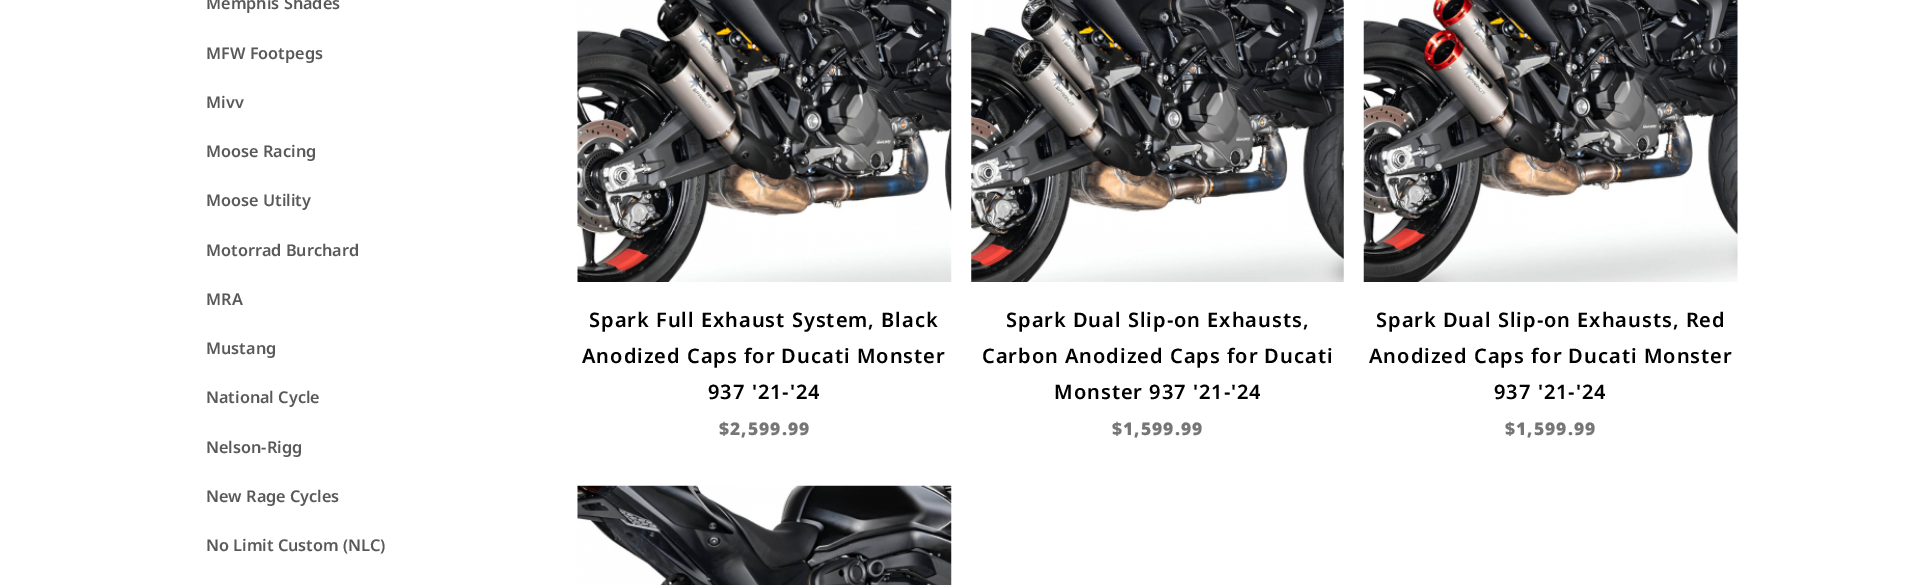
%!PS
<< /PageSize [1914 585] >> setpagedevice
/rgb { dup -16 bitshift 255 div exch dup -8 bitshift 255 and 255 div exch 255 and 255 div setrgbcolor } def
/font { [ exch dup neg 0 0 3 -1 roll 0 0 ] selectfont } def
/text { moveto show } def
/picture { 5 dict begin { /h /w /y /x /name } { exch def } forall
  gsave x y translate w h scale
  w h 8 [w 0 0 h 0 0] name (r) file false 3 colorimage grestore end } def
0 585 translate 1 -1 scale
4 setmiterlimit
/s1 { /NotoSans-SemiBold 16.25 font 16#595959 rgb } def
16#FFFFFF rgb
0 0 1914 585 rectfill
s1
(Memphis Shades) 206 9 text
(MFW Footpegs) 206 59 text
(Mivv) 206 108 text
(Moose Racing) 206 157 text
(Moose Utility) 206 206 text
(Motorrad Burchard) 206 256 text
(MRA) 206 305 text
(Mustang) 206 354 text
(National Cycle) 206 403 text
(Nelson-Rigg) 206 453 text
(New Rage Cycles) 206 502 text
(No Limit Custom \(NLC\)) 206 551 text
(pic1.raw) 577 0 375 282 picture
/NotoSans-SemiBold 20 font
16#000000 rgb
589 327 moveto 1 0 (Spark Full Exhaust System, Black) ashow
582 363 moveto 1 0 (Anodized Caps for Ducati Monster) ashow
708 399 moveto 1 0 (937 '21-'24) ashow
/NotoSans-Black 17.5 font
16#767676 rgb
719 435 moveto 1 0 ($2,599.99) ashow
(pic2.raw) 971 0 373 282 picture
/NotoSans-SemiBold 20 font
16#000000 rgb
1006 327 moveto 1 0 (Spark Dual Slip-on Exhausts,) ashow
982 363 moveto 1 0 (Carbon Anodized Caps for Ducati) ashow
1054 399 moveto 1 0 (Monster 937 '21-'24) ashow
/NotoSans-Black 17.5 font
16#767676 rgb
1112 435 moveto 1 0 ($1,599.99) ashow
(pic3.raw) 1363 0 375 282 picture
/NotoSans-SemiBold 20 font
16#000000 rgb
1376 327 moveto 1 0 (Spark Dual Slip-on Exhausts, Red) ashow
1369 363 moveto 1 0 (Anodized Caps for Ducati Monster) ashow
1494 399 moveto 1 0 (937 '21-'24) ashow
/NotoSans-Black 17.5 font
16#767676 rgb
1505 435 moveto 1 0 ($1,599.99) ashow
(pic4.raw) 577 485 375 100 picture
showpage
